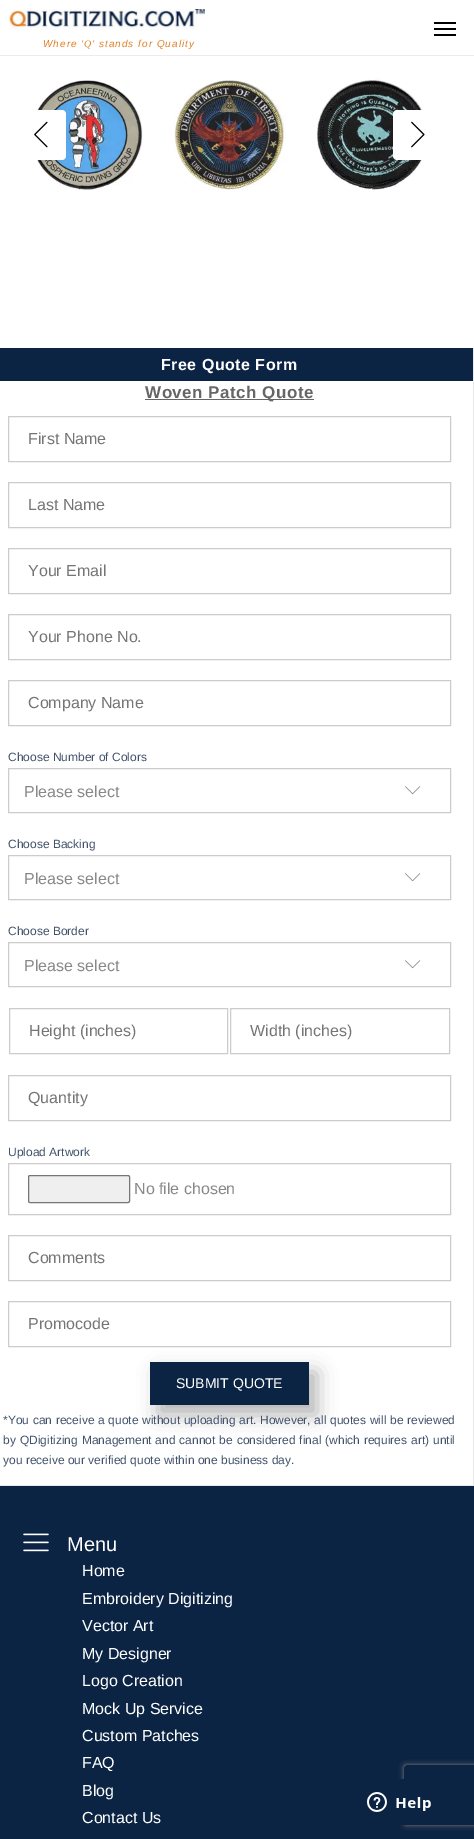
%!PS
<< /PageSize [474 1839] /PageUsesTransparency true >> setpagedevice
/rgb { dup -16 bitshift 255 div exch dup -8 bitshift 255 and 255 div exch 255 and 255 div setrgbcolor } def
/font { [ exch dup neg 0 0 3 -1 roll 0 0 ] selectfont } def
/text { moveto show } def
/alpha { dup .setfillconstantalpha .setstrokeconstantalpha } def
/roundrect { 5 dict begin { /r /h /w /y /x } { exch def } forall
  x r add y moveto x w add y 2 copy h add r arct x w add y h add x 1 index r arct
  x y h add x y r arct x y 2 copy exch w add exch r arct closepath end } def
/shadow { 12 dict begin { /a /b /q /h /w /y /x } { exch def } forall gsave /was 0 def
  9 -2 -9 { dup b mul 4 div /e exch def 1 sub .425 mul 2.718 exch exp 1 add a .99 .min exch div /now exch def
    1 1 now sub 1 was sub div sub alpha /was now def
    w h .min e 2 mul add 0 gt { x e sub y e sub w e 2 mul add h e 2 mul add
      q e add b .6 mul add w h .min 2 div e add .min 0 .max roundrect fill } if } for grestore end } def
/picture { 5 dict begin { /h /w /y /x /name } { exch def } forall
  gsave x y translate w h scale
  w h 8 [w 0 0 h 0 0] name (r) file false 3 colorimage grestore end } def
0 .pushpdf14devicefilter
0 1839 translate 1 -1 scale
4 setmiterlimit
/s1 { /LiberationSans-Regular 16 font 16#757575 rgb } def
/s2 { /LiberationSans-Regular 12 font 16#41516A rgb } def
/s3 { /LiberationSans-Regular 16 font 16#888888 rgb } def
/s4 { /LiberationSans-Regular 14 font 16#FFFFFF rgb } def
/s5 { /LiberationSans-Regular 20 font 16#FFFFFF rgb } def
/s6 { /LiberationSans-Regular 16 font 16#FFFFFF rgb } def
16#FFFFFF rgb
0 0 474 1839 rectfill
16#ECECEE rgb
0 55 474 1 rectfill
16#000000 rgb
434 28 22 2 rectfill
434 22 22 2 rectfill
434 34 22 2 rectfill
(pic1.raw) 9 9 196 21 picture
/LiberationSans-Italic 10 font
16#E17F26 rgb
43 47 moveto 1 0 (Where) ashow
/LiberationSerif-Italic 10 font
81 47 moveto 1 0 ('Q') ashow
/LiberationSans-Italic 10 font
99 47 moveto 1 0 (stands for Quality) ashow
(pic2.raw) 31 80 112 110 picture
(pic3.raw) 174 79 112 111 picture
(pic4.raw) 317 78 112 112 picture
16#FFFFFF rgb
16 110 moveto 62 110 lineto 64 110 66 112 66 114 curveto 66 156 lineto 66 158 64 160 62 160 curveto 16 160 lineto closepath fill
(pic5.raw) 34 121 14 27 picture
397 110 moveto 443 110 lineto 443 160 lineto 397 160 lineto 395 160 393 158 393 156 curveto 393 114 lineto 393 112 395 110 397 110 curveto closepath fill
(pic6.raw) 411 121 14 27 picture
16#E8E8E8 rgb
473 348 1 1138 rectfill
0 1485 474 1 rectfill
16#0C2444 rgb
0 348 473 33 rectfill
/LiberationSans-Bold 16 font
16#FFFFFF rgb
161 370 moveto 0.5 0 (Free Quote Form) ashow
16#666666 rgb
145 399 169 1 rectfill
/LiberationSans-Bold 17 font
145 398 moveto 0.5 0 (Woven Patch Quote) ashow
16#CCCCCC rgb
8.5 416.5 442 45 rectstroke
s1
(First Name) 28 444 text
16#CCCCCC rgb
8.5 482.5 442 45 rectstroke
s1
(Last Name) 28 510 text
16#CCCCCC rgb
8.5 548.5 442 45 rectstroke
s1
(Your Email) 28 576 text
16#CCCCCC rgb
8.5 614.5 442 45 rectstroke
s1
(Your Phone No.) 28 642 text
16#CCCCCC rgb
8.5 680.5 442 45 rectstroke
s1
(Company Name) 28 708 text
s2
(Choose Number of Colors) 8 761 text
16#CCCCCC rgb
8.5 768.5 442 44 rectstroke
s3
(Please select) 24 797 text
(pic7.raw) 405 786 16 9 picture
s2
(Choose Backing) 8 848 text
16#CCCCCC rgb
8.5 855.5 442 44 rectstroke
s3
(Please select) 24 884 text
(pic7.raw) 405 873 16 9 picture
s2
(Choose Border) 8 935 text
16#CCCCCC rgb
8.5 942.5 442 44 rectstroke
s3
(Please select) 24 971 text
(pic7.raw) 405 960 16 9 picture
16#CCCCCC rgb
9.5 1008.5 218 45 rectstroke
s1
(Height \(inches\)) 29 1036 text
16#CCCCCC rgb
230.5 1008.5 219 45 rectstroke
s1
(Width \(inches\)) 250 1036 text
16#CCCCCC rgb
8.5 1075.5 442 45 rectstroke
s1
(Quantity) 28 1103 text
s2
(Upload Artwork) 8 1156 text
16#CCCCCC rgb
8.5 1163.5 442 51 rectstroke
16#EFEFEF rgb
28.5 1175.5 101 27 1.5 roundrect gsave fill grestore
16#767676 rgb
stroke
s3
(No file chosen) 134 1194 text
16#CCCCCC rgb
8.5 1235.5 442 45 rectstroke
s1
(Comments) 28 1263 text
16#000000 rgb
158 1372 159 43 0 10 0.3 shadow
16#CCCCCC rgb
8.5 1301.5 442 45 rectstroke
s1
(Promocode) 28 1329 text
16#0C2444 rgb
150 1362 159 43 rectfill
s4
(SUBMIT QUOTE) 176 1388 text
/LiberationSans-Regular 12 font
16#41516A rgb
3 1424 moveto 0.3 0 32 (*You can receive a quote without uploading art. However, all quotes will be reviewed) widthshow
3 1444 moveto 0.6 0 32 (by QDigitizing Management and cannot be considered final \(which requires art\) until) widthshow
(you receive our verified quote within one business day.) 3 1464 text
16#0C2444 rgb
0 1486 474 353 rectfill
(pic8.raw) 23 1533 26 19 picture
s5
(Menu) 67 1551 text
s6
(Home) 82 1576 text
(Embroidery Digitizing) 82 1604 text
(Vector Art) 82 1631 text
(My Designer) 82 1659 text
(Logo Creation) 82 1686 text
(Mock Up Service) 82 1714 text
(Custom Patches) 82 1741 text
(FAQ) 82 1768 text
(Blog) 82 1796 text
(Contact Us) 82 1823 text
gsave
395 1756 moveto 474 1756 lineto 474 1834 lineto 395 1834 lineto closepath 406 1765 moveto 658 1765 lineto 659 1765 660 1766 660 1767 curveto 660 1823 lineto 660 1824 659 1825 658 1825 curveto 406 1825 lineto 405 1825 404 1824 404 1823 curveto 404 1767 lineto 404 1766 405 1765 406 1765 curveto closepath eoclip newpath
16#808080 rgb
404 1765 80 60 2 2.5 1 shadow
grestore
(pic9.raw) 367 1779 64 46 picture
.poppdf14devicefilter showpage
